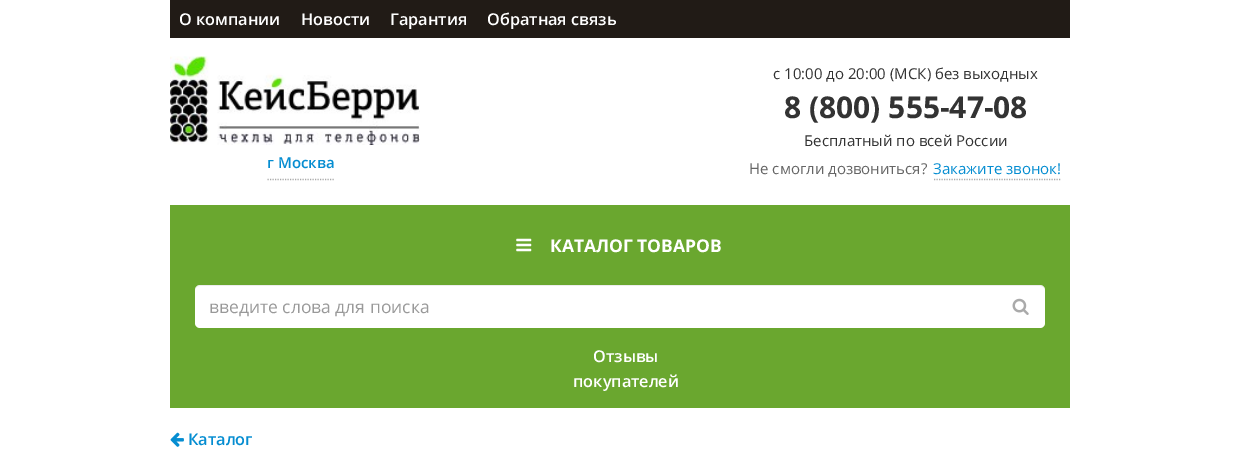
%!PS
<< /PageSize [1238 474] /PageUsesTransparency true >> setpagedevice
/rgb { dup -16 bitshift 255 div exch dup -8 bitshift 255 and 255 div exch 255 and 255 div setrgbcolor } def
/font { [ exch dup neg 0 0 3 -1 roll 0 0 ] selectfont } def
/text { moveto show } def
/alpha { dup .setfillconstantalpha .setstrokeconstantalpha } def
/roundrect { 5 dict begin { /r /h /w /y /x } { exch def } forall
  x r add y moveto x w add y 2 copy h add r arct x w add y h add x 1 index r arct
  x y h add x y r arct x y 2 copy exch w add exch r arct closepath end } def
/picture { 5 dict begin { /h /w /y /x /name } { exch def } forall
  gsave x y translate w h scale
  w h 8 [w 0 0 h 0 0] name (r) file false 3 colorimage grestore end } def
0 .pushpdf14devicefilter
0 474 translate 1 -1 scale
4 setmiterlimit
/s1 { /OpenSans-SemiBold 16.25 font 16#FFFFFF rgb } def
/s2 { /OpenSans-SemiBold 15 font 16#058DD1 rgb } def
/s3 { /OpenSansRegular-Regular 15 font 16#333333 rgb } def
/s4 { /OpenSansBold-Bold 30 font 16#333333 rgb } def
/s5 { /OpenSansRegular-Regular 15 font 16#666666 rgb } def
/s6 { /OpenSansRegular-Regular 15 font 16#058DD1 rgb } def
/s7 { /OpenSansBold-Bold 17.5 font 16#FFFFFF rgb } def
/s8 { /OpenSansRegular-Regular 17.5 font 16#999999 rgb } def
/s9 { /OpenSans-SemiBold 16.25 font 16#058DD1 rgb } def
16#FFFFFF rgb
0 0 1238 474 rectfill
16#211B16 rgb
170 0 900 38 rectfill
s1
(О компании) 179 25 text
(Новости) 301 25 text
(Гарантия) 390 25 text
(Обратная связь) 487 25 text
(pic1.raw) 170 56 250 89 picture
16#AAAAAA rgb
1.2 setlinewidth
[1.25 1.25] 0 setdash
267.5 179.5 moveto 334 179.5 lineto stroke
s2
(г Москва) 267 168 text
s3
(c 10:00 до 20:00 \(МСК\) без выходных) 773 79 text
s4
(8 \(800\) 555-47-08) 784 118 text
s3
(Бесплатный по всей России) 804 146 text
s5
(Не смогли дозвониться?) 749 174 text
16#AAAAAA rgb
934 179.5 moveto 1061 179.5 lineto stroke
s6
(Закажите звонок!) 933 174 text
16#6AA72F rgb
170 205 900 203 rectfill
(pic2.raw) 516 238 16 14 picture
s7
(КАТАЛОГ ТОВАРОВ) 550 252 text
195 285 850 43 5 roundrect fill
0.07 alpha
16#000000 rgb
200 286 moveto 1040 286 lineto 1043 286 1045 288 1045 291 curveto 1045 288 1043 285 1040 285 curveto 200 285 lineto 197 285 195 288 195 291 curveto 195 288 197 286 200 286 curveto closepath fill
1 alpha
s8
(введите слова для поиска) 209 313 text
(pic3.raw) 1012 298 17 17 picture
s1
(Отзывы) 593 362 text
(покупателей) 573 387 text
(pic4.raw) 170 432 14 15 picture
s9
(Каталог) 188 445 text
.poppdf14devicefilter showpage
